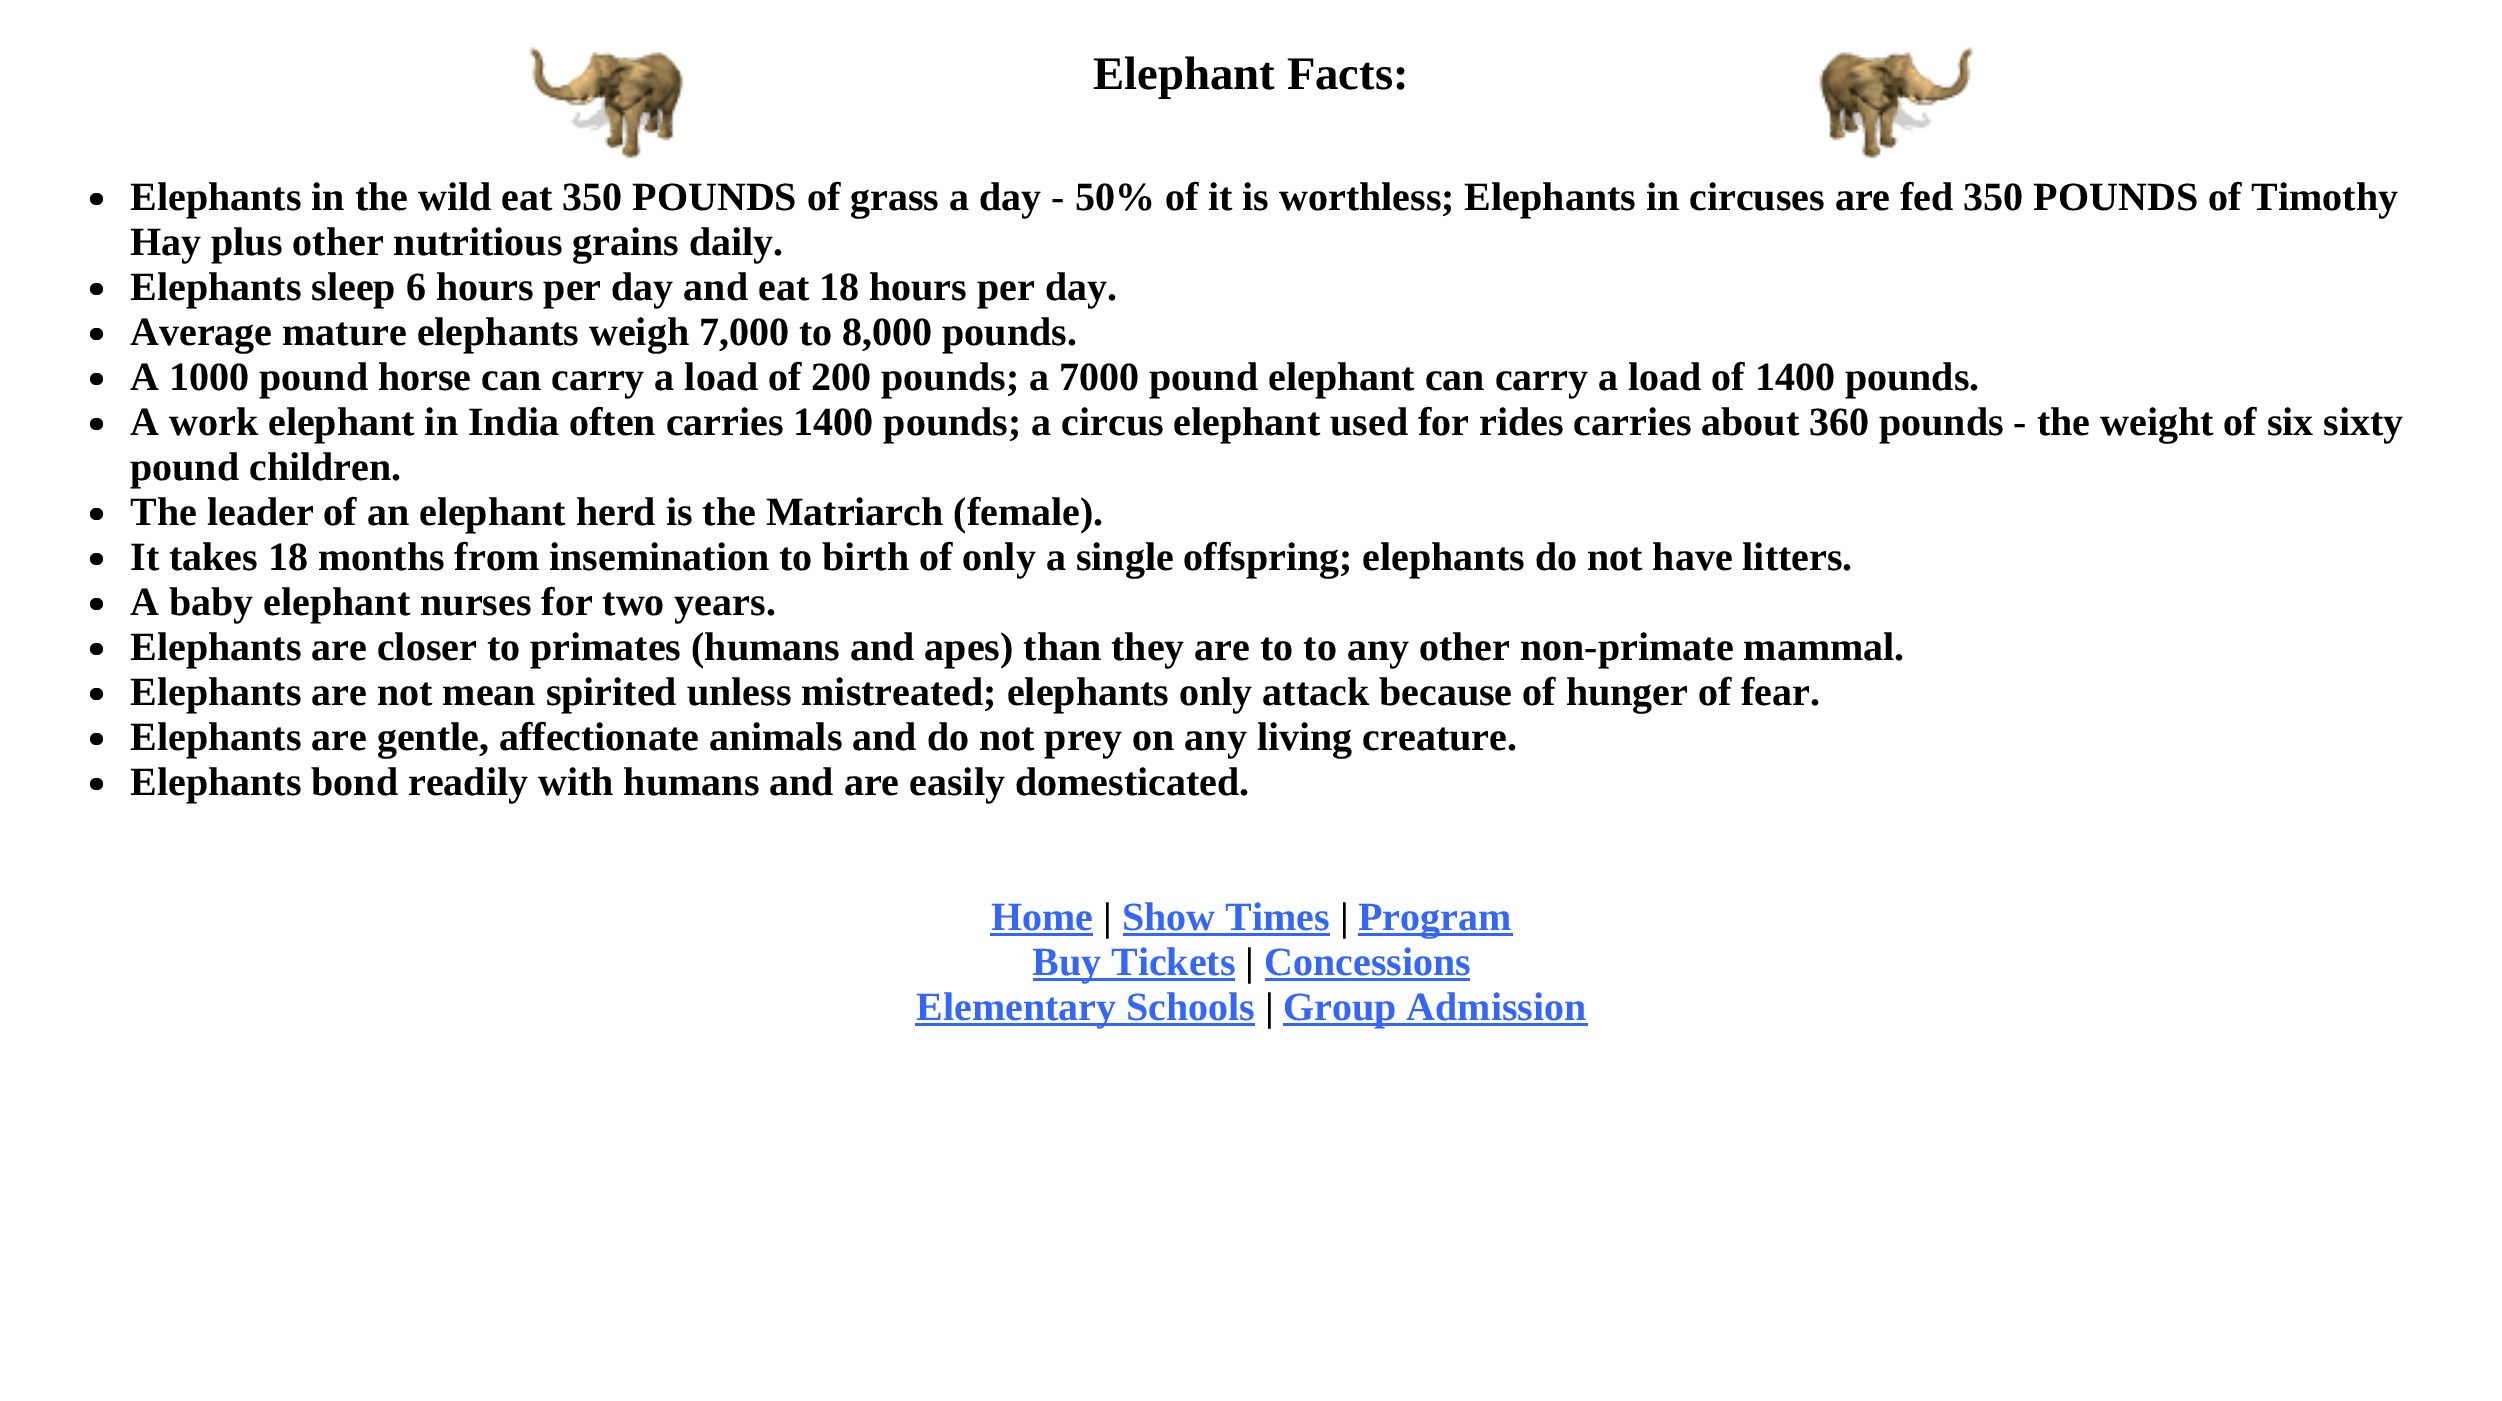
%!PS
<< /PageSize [2502 1401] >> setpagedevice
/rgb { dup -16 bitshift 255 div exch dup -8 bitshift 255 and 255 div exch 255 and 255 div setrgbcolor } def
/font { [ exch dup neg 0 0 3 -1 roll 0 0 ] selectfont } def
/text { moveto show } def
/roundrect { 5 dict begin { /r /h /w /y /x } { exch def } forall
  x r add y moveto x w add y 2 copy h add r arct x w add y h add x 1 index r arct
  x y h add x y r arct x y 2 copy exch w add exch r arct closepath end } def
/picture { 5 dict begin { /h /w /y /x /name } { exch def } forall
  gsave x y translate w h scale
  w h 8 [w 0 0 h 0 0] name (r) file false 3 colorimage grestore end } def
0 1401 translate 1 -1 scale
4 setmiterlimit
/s1 { /LiberationSerif-Bold 46.75 font 16#000000 rgb } def
/s2 { /LiberationSerif-Bold 40 font 16#000000 rgb } def
/s3 { /LiberationSerif-Bold 40 font 16#3366FF rgb } def
16#FFFFFF rgb
0 0 2502 1401 rectfill
(pic1.raw) 529 46 155 113 picture
s1
(Elephant Facts:) 1093 89 text
(pic2.raw) 1819 46 155 113 picture
90 193 13 12 6 roundrect fill
s2
(Elephants in the wild eat 350 POUNDS of grass a day - 50% of it is worthless; Elephants in circuses are fed 350 POUNDS of Timothy) 130 210 text
(Hay plus other nutritious grains daily.) 130 255 text
90 283 13 12 6 roundrect fill
(Elephants sleep 6 hours per day and eat 18 hours per day.) 130 300 text
90 328 13 12 6 roundrect fill
(Average mature elephants weigh 7,000 to 8,000 pounds.) 130 345 text
90 373 13 12 6 roundrect fill
(A 1000 pound horse can carry a load of 200 pounds; a 7000 pound elephant can carry a load of 1400 pounds.) 130 390 text
90 418 13 12 6 roundrect fill
(A work elephant in India often carries 1400 pounds; a circus elephant used for rides carries about 360 pounds - the weight of six sixty) 130 435 text
(pound children.) 130 480 text
90 508 13 12 6 roundrect fill
(The leader of an elephant herd is the Matriarch \(female\).) 130 525 text
90 553 13 12 6 roundrect fill
(It takes 18 months from insemination to birth of only a single offspring; elephants do not have litters.) 130 570 text
90 598 13 12 6 roundrect fill
(A baby elephant nurses for two years.) 130 615 text
90 643 13 12 6 roundrect fill
(Elephants are closer to primates \(humans and apes\) than they are to to any other non-primate mammal.) 130 660 text
90 688 13 12 6 roundrect fill
(Elephants are not mean spirited unless mistreated; elephants only attack because of hunger of fear.) 130 705 text
90 733 13 12 6 roundrect fill
(Elephants are gentle, affectionate animals and do not prey on any living creature.) 130 750 text
90 778 13 12 6 roundrect fill
(Elephants bond readily with humans and are easily domesticated.) 130 795 text
s3
(Home) 991 930 text
990 933 103 3 rectfill
s2
(|) 1103 930 text
s3
(Show Times) 1122 930 text
1123 933 207 3 rectfill
s2
(|) 1340 930 text
16#3366FF rgb
1358 933 155 3 rectfill
(Program) 1358 930 text
1033 978 202 3 rectfill
(Buy Tickets) 1032 975 text
s2
(|) 1245 975 text
s3
(Concessions) 1264 975 text
1265 978 205 3 rectfill
915 1023 340 3 rectfill
(Elementary Schools) 916 1020 text
s2
(|) 1265 1020 text
16#3366FF rgb
1283 1023 305 3 rectfill
(Group Admission) 1283 1020 text
showpage
